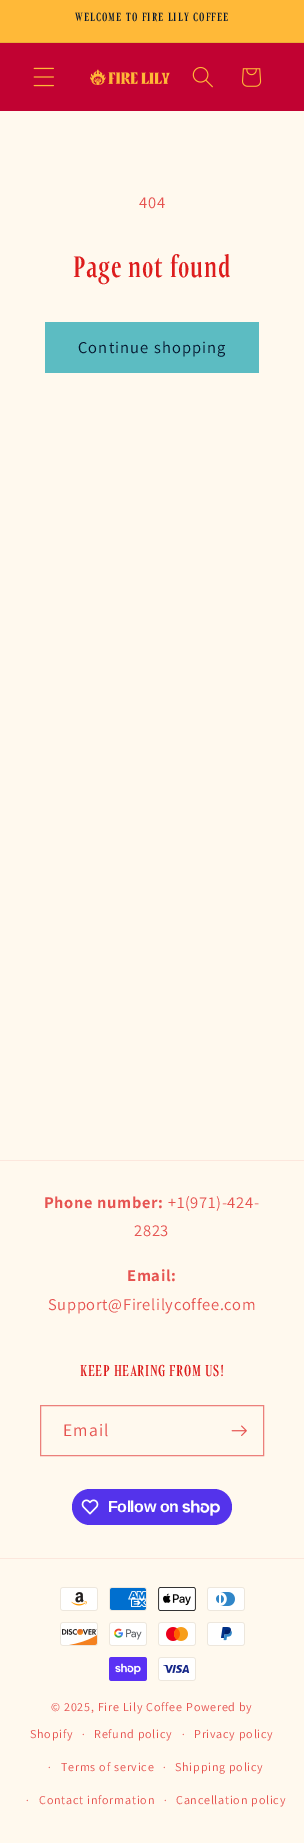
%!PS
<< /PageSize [304 1843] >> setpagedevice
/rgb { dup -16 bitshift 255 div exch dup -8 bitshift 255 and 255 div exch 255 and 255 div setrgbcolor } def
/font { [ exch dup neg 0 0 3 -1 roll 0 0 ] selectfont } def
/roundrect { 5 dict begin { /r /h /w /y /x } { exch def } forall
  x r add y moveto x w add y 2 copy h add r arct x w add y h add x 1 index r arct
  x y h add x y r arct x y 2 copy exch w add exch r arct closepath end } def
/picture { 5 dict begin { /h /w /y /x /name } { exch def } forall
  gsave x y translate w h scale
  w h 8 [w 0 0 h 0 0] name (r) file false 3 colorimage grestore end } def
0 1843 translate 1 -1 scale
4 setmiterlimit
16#FFF9EE rgb
0 0 304 1843 rectfill
16#FFB938 rgb
0 0 304 42 rectfill
16#EBAC37 rgb
0 42 304 1 rectfill
/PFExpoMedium-Medium 12 font
16#05172F rgb
75 21 moveto 1.1 0 (WELCOME TO FIRE LILY COFFEE) ashow
16#C10232 rgb
0 43 304 68 rectfill
(pic1.raw) 33 67 21 20 picture
(pic2.raw) 90 69 80 16 picture
(pic3.raw) 192 66 21 22 picture
(pic4.raw) 242 68 20 19 picture
/Assistant-Regular 16.5 font
16#E65451 rgb
139 208 moveto 0.65 0 (404) ashow
/PFExpoMedium-Medium 30 font
16#DD1D1D rgb
73 277 moveto 0.6 0 (Page not found) ashow
16#5CBCC2 rgb
45 322 214 51 rectfill
/Assistant-Regular 16.5 font
16#05172F rgb
78 353 moveto 1.1 0 (Continue shopping) ashow
16#FCE7DD rgb
0 1160 304 1 rectfill
/Assistant-Bold 16.5 font
16#E65451 rgb
44 1208 moveto 0.65 0 (Phone number:) ashow
/Assistant-Regular 16.5 font
168 1208 moveto 0.65 0 (+1\(971\)-424-) ashow
134 1236 moveto 0.65 0 (2823) ashow
/Assistant-Bold 16.5 font
127 1281 moveto 0.65 0 (Email:) ashow
/Assistant-Regular 16.5 font
48 1310 moveto 0.65 0 (Support@Firelilycoffee.com) ashow
/PFExpoMedium-Medium 16 font
16#DD1D1D rgb
80 1376 moveto 0.6 0 (KEEP HEARING FROM US!) ashow
16#EC807B rgb
40.5 1405.5 223 50 rectstroke
/Assistant-Regular 17.5 font
16#E65451 rgb
63 1436 moveto 1.1 0 (Email) ashow
(pic5.raw) 231 1425 16 11 picture
16#5433EB rgb
72 1489 160 36 18 roundrect fill
(pic6.raw) 81 1499 18 16 picture
/LiberationSans-Bold 16 font
16#FFFFFF rgb
108 1512 moveto -0.5 0 (Follow on) ashow
(pic7.raw) 182 1500 38 16 picture
16#FCE7DD rgb
0 1558 304 1 rectfill
(pic8.raw) 60 1587 38 24 picture
(pic9.raw) 109 1587 38 24 picture
(pic10.raw) 158 1587 38 24 picture
(pic11.raw) 207 1587 38 24 picture
(pic12.raw) 60 1622 38 24 picture
(pic13.raw) 109 1622 38 24 picture
(pic14.raw) 158 1622 38 24 picture
(pic15.raw) 207 1622 38 24 picture
(pic16.raw) 109 1657 38 24 picture
(pic17.raw) 158 1657 38 24 picture
/Assistant-Regular 12.1 font
16#E65451 rgb
51 1711 moveto 0.75 0 (© 2025, Fire Lily Coffee Powered by) ashow
/Assistant-Regular 11 font
82 1738 moveto 0.75 0 (·) ashow
/Assistant-Regular 12.1 font
94 1738 moveto 0.75 0 (Refund policy) ashow
/Assistant-Regular 11 font
182 1738 moveto 0.75 0 (·) ashow
/Assistant-Regular 12.1 font
194 1738 moveto 0.75 0 (Privacy policy) ashow
/Assistant-Regular 11 font
48 1771 moveto 0.75 0 (·) ashow
/Assistant-Regular 12.1 font
61 1771 moveto 0.75 0 (Terms of service) ashow
/Assistant-Regular 11 font
163 1771 moveto 0.75 0 (·) ashow
/Assistant-Regular 12.1 font
175 1771 moveto 0.75 0 (Shipping policy) ashow
/Assistant-Regular 11 font
26 1804 moveto 0.75 0 (·) ashow
/Assistant-Regular 12.1 font
39 1804 moveto 0.75 0 (Contact information) ashow
/Assistant-Regular 11 font
164 1804 moveto 0.75 0 (·) ashow
/Assistant-Regular 12.1 font
176 1804 moveto 0.75 0 (Cancellation policy) ashow
30 1738 moveto 0.75 0 (Shopify) ashow
showpage
